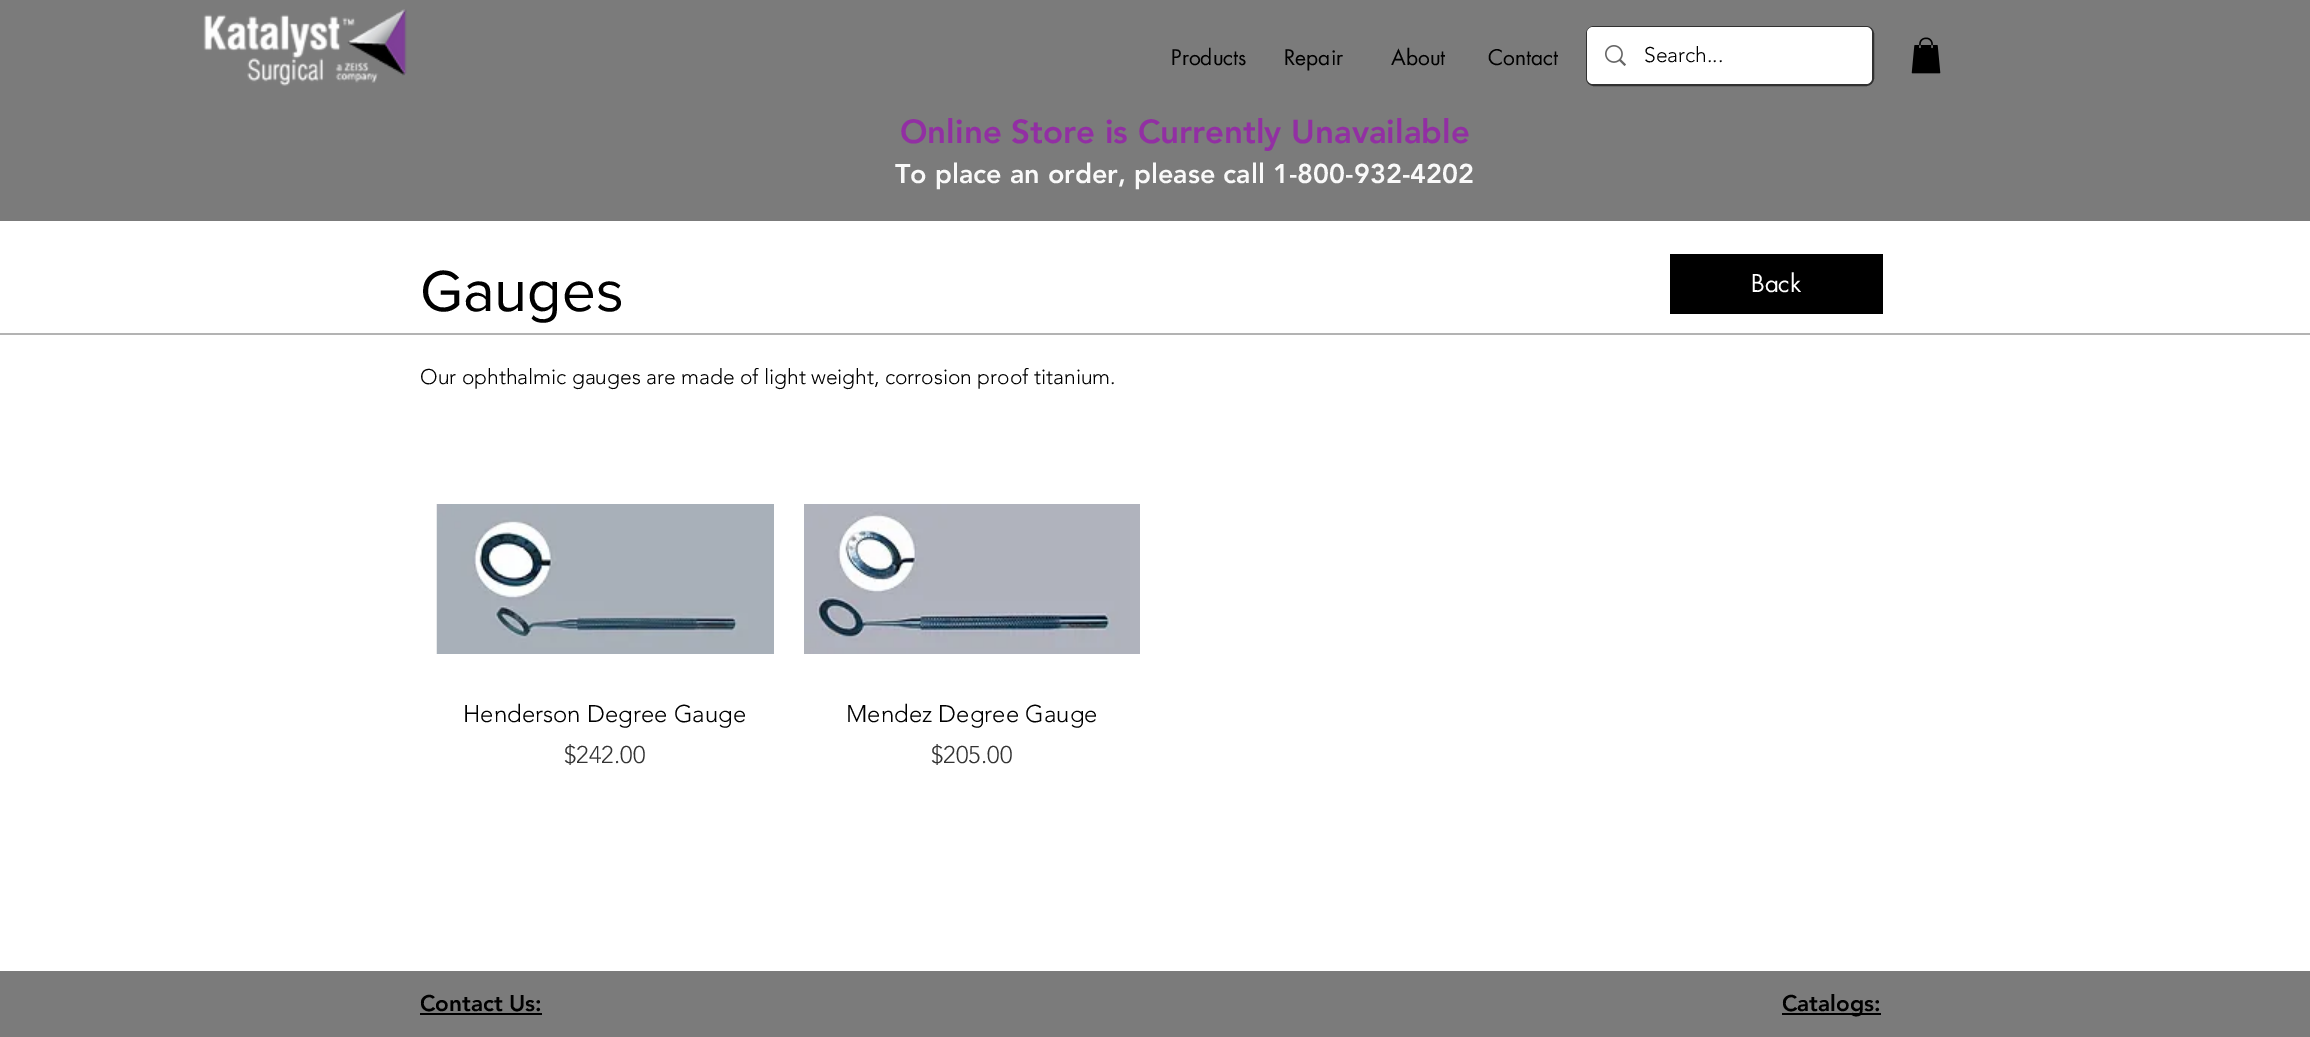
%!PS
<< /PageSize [2310 1037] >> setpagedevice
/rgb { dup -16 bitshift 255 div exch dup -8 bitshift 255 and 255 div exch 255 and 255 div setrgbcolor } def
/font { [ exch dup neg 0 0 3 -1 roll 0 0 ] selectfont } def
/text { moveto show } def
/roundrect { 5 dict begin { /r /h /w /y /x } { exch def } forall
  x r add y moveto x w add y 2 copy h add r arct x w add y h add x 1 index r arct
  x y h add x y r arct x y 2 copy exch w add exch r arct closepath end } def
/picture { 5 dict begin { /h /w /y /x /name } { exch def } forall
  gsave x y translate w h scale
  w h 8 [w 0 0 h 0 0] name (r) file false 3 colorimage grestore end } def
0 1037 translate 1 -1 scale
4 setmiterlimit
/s1 { /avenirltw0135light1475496-Light 21 font 16#000000 rgb } def
/s2 { /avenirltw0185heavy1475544-Black 33 font 16#922FA3 rgb } def
/s3 { /avenirltw0185heavy1475544-Black 27 font 16#F9F9F9 rgb } def
/s4 { /futura-Regular 21 font 16#000000 rgb } def
/s5 { /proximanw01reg-Regular 60 font 16#000000 rgb } def
/s6 { /futura-Regular 24 font 16#FFFFFF rgb } def
/s7 { /avenirltw0135light1475496-Light 24 font 16#000000 rgb } def
/s8 { /avenirltw0135light1475496-Light 24 font 16#333333 rgb } def
/s9 { /avenirltw0185heavy1475544-Black 22.5 font 16#000000 rgb } def
16#FFFFFF rgb
0 0 2310 1037 rectfill
16#7B7B7B rgb
0 0 2310 221 rectfill
(pic1.raw) 203 9 204 77 picture
16#313131 rgb
2 setlinewidth
1587 27 286 58 7 roundrect stroke
16#FFFFFF rgb
1587 27 285 57 6 roundrect fill
(pic2.raw) 1605 45 21 21 picture
s1
(Search...) 1644 62 text
(pic3.raw) 1911 37 30 37 picture
s2
(Online Store is Currently Unavailable) 900 143 text
s3
(To place an order, please call 1-800-932-4202) 895 183 text
s4
(Products) 1171 65 text
(Repair) 1284 65 text
(About) 1391 65 text
(Contact) 1488 65 text
s5
(Gauges) 420 311 text
1670 254 213 60 rectfill
s6
(Back) 1751 292 text
16#B3B3B3 rgb
0 333 2310 2 rectfill
s1
(Our ophthalmic gauges are made of light weight, corrosion proof titanium.) 420 384 text
(pic4.raw) 436 504 338 150 picture
s7
(Henderson Degree Gauge) 463 722 text
s8
($242.00) 564 763 text
(pic5.raw) 804 504 336 150 picture
s7
(Mendez Degree Gauge) 846 722 text
s8
($205.00) 931 763 text
16#7B7B7B rgb
0 971 2310 66 rectfill
s9
(Contact Us:) 420 1011 text
420 1013 122 2 rectfill
1782 1013 99 2 rectfill
(Catalogs:) 1782 1011 text
showpage
